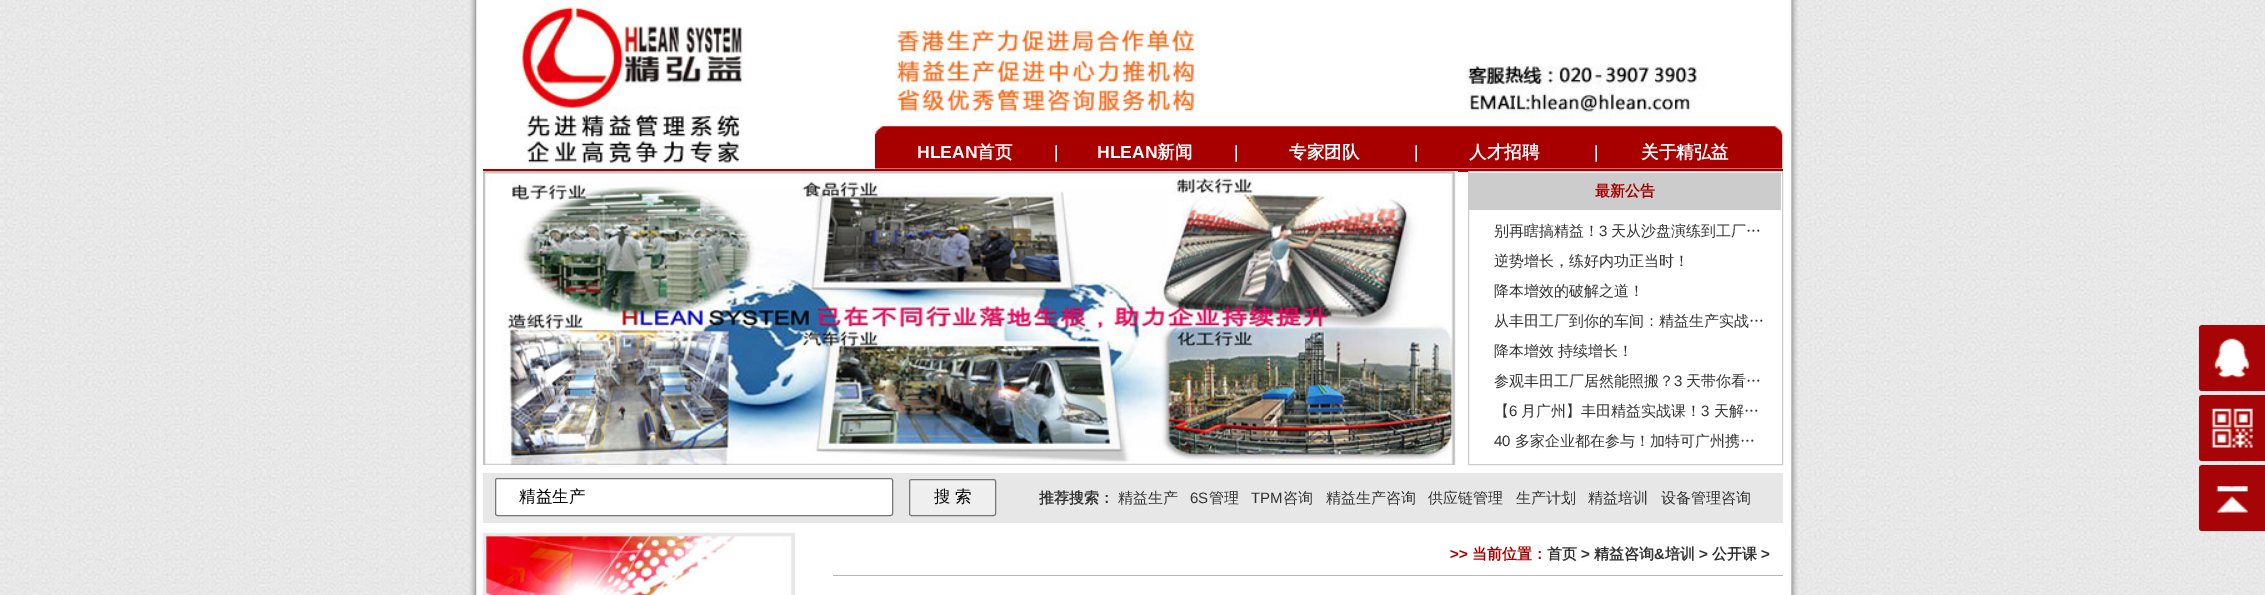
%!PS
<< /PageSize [2265 595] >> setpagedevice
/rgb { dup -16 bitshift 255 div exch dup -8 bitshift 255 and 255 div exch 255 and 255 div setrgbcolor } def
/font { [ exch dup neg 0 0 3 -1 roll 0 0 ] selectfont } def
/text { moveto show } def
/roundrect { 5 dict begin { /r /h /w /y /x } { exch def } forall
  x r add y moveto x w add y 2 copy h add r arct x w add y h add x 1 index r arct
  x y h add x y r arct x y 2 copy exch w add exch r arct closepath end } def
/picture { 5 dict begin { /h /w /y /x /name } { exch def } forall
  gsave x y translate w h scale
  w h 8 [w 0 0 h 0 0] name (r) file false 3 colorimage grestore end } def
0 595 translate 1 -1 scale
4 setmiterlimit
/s1 { /LiberationSans-Bold 17.5 font 16#FFFFFF rgb } def
/s2 { /WenQuanYiZenHei-Bold 17.5 font 16#FFFFFF rgb } def
/s3 { /LiberationSans-Regular 17.5 font 16#FFFFFF rgb } def
/s4 { /WenQuanYiZenHei-Bold 15 font 16#A80000 rgb } def
/s5 { /WenQuanYiZenHei-Medium 15 font 16#333333 rgb } def
/s6 { /LiberationSans-Regular 15 font 16#333333 rgb } def
/s7 { /WenQuanYiZenHei-Medium 16.5 font 16#000000 rgb } def
/s8 { /WenQuanYiZenHei-Bold 15 font 16#333333 rgb } def
/s9 { /LiberationSans-Bold 15 font 16#A80000 rgb } def
/s10 { /LiberationSans-Bold 15 font 16#333333 rgb } def
16#FFFFFF rgb
0 0 2265 595 rectfill
(pic1.raw) 0 0 2265 595 picture
16#A80000 rgb
483 169 1300 3 rectfill
(pic2.raw) 520 6 225 160 picture
(pic3.raw) 895 26 810 91 picture
(pic4.raw) 875 126 908 43 picture
s1
(HLEAN) 917 158 text
s2
(首页) 977 158 text
s3
(|) 1054 158 text
s1
(HLEAN) 1097 158 text
s2
(新闻) 1157 158 text
s3
(|) 1234 158 text
s2
(专家团队) 1289 158 text
s3
(|) 1414 158 text
s2
(人才招聘) 1469 158 text
s3
(|) 1594 158 text
s2
(关于精弘益) 1641 158 text
(pic5.raw) 483 171 975 294 picture
16#CCCCCC rgb
1468.5 171.5 314 293 rectstroke
1469 173 312 37 rectfill
s4
(最新公告) 1595 196 text
s5
(别再瞎搞精益！) 1494 236 text
s6
(3) 1599 236 text
s5
(天从沙盘演练到工厂…) 1611 236 text
(逆势增长，练好内功正当时！) 1494 266 text
(降本增效的破解之道！) 1494 296 text
(从丰田工厂到你的车间：精益生产实战…) 1494 326 text
(降本增效 持续增长！) 1494 356 text
(参观丰田工厂居然能照搬？) 1494 386 text
s6
(3) 1674 386 text
s5
(天带你看…) 1686 386 text
(【) 1494 416 text
s6
(6) 1509 416 text
s5
(月广州】丰田精益实战课！) 1521 416 text
s6
(3) 1701 416 text
s5
(天解…) 1714 416 text
s6
(40) 1494 446 text
s5
(多家企业都在参与！加特可广州携…) 1515 446 text
16#E7E7E7 rgb
483 473 1300 50 rectfill
16#FFFFFF rgb
495.5 478.5 397 37 2 roundrect gsave fill grestore
16#767676 rgb
stroke
s7
(精益生产) 519 502 text
16#EFEFEF rgb
909.5 479.5 86 36 2 roundrect gsave fill grestore
16#767676 rgb
stroke
s7
(搜 索) 934 502 text
s8
(推荐搜索：) 1039 503 text
s5
(精益生产) 1118 503 text
s6
(6S) 1190 503 text
s5
(管理) 1209 503 text
s6
(TPM) 1251 503 text
s5
(咨询) 1283 503 text
(精益生产咨询) 1326 503 text
(供应链管理) 1428 503 text
(生产计划) 1516 503 text
(精益培训) 1588 503 text
(设备管理咨询) 1661 503 text
(pic6.raw) 482 532 313 63 picture
16#B9B8B8 rgb
833 575 950 1 rectfill
s9
(>>) 1450 559 text
s4
(当前位置：) 1472 559 text
s8
(首页) 1547 559 text
s10
(>) 1581 559 text
s8
(精益咨询) 1594 559 text
s10
(&) 1654 559 text
s8
(培训) 1665 559 text
s10
(>) 1699 559 text
s8
(公开课) 1712 559 text
s10
(>) 1761 559 text
(pic7.raw) 2199 325 66 67 picture
(pic8.raw) 2199 395 66 67 picture
(pic9.raw) 2199 465 66 67 picture
showpage
